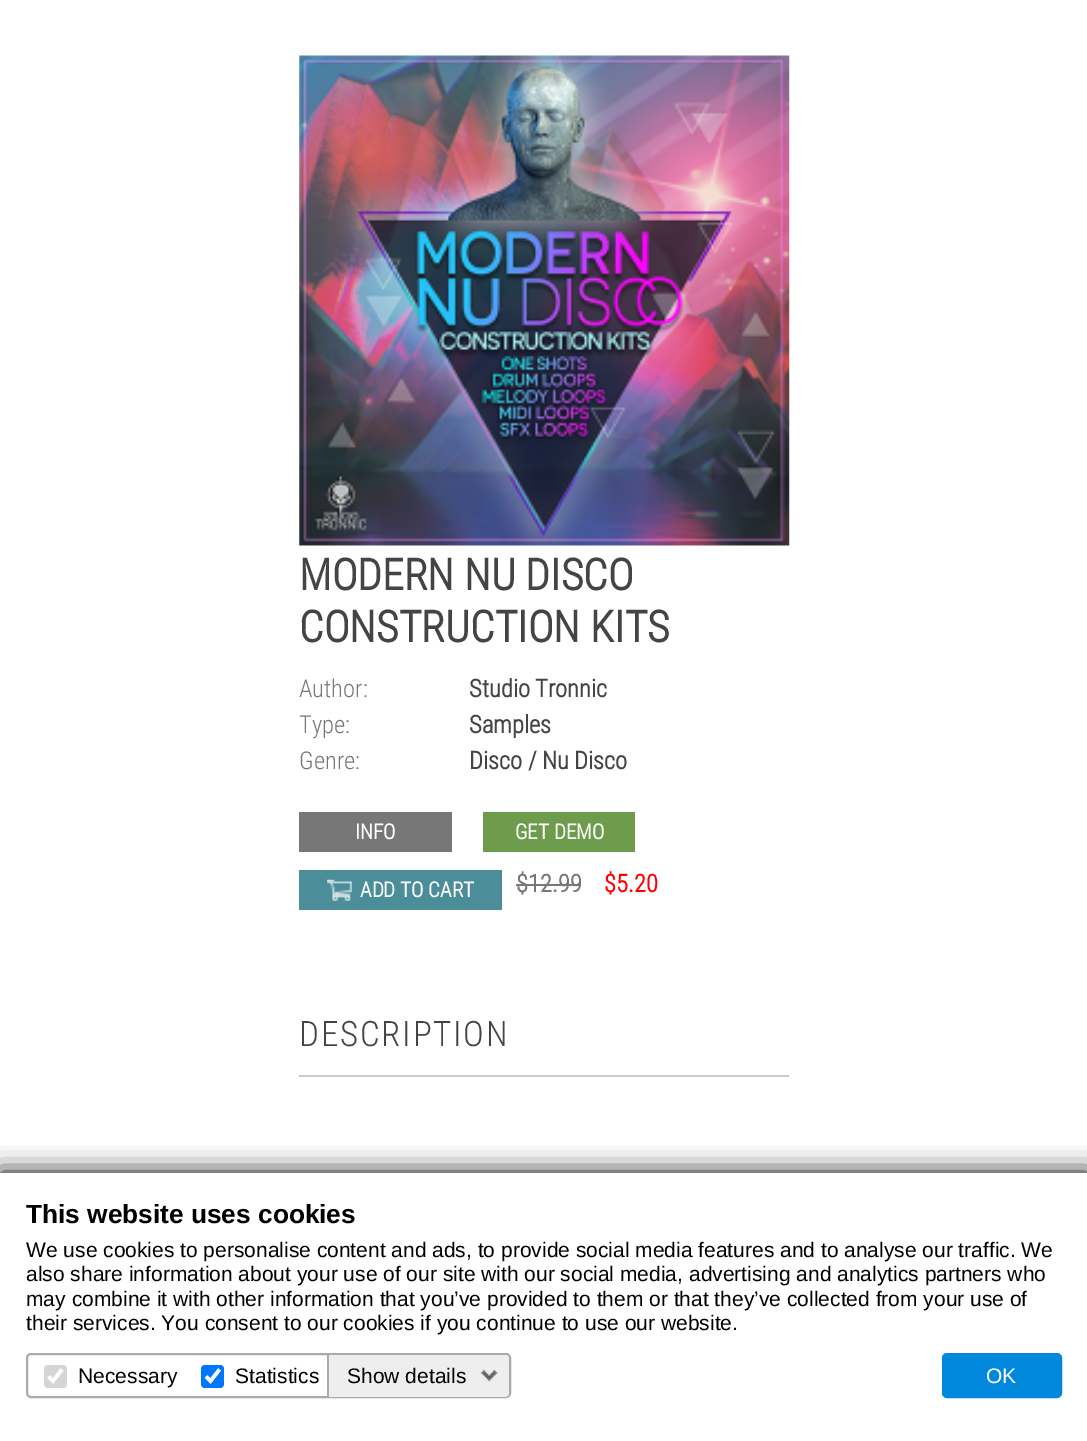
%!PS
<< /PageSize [1087 1441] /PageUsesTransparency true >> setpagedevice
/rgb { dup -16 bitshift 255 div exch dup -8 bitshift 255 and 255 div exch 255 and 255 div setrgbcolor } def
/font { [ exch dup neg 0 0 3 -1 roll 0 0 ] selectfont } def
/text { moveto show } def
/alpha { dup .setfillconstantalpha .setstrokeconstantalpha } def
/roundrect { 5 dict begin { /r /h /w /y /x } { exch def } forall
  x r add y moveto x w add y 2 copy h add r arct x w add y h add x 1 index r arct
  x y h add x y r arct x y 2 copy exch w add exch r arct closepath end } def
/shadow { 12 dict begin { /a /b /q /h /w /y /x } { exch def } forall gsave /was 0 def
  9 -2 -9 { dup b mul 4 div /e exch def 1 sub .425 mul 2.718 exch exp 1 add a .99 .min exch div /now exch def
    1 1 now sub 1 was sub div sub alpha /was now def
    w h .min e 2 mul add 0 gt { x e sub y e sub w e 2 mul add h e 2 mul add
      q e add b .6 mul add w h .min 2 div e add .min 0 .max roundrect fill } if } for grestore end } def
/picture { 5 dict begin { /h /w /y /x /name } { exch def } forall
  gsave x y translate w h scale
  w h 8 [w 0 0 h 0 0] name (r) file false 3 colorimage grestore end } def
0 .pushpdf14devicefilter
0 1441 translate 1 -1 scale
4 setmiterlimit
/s1 { /RobotoCondensed-Bold 43.5 font 16#444444 rgb } def
/s2 { /RobotoCondensed-Light 24.5 font 16#777777 rgb } def
/s3 { /RobotoCondensed-Bold 24.5 font 16#444444 rgb } def
/s4 { /RobotoCondensed-Bold 21 font 16#FFFFFF rgb } def
/s5 { /RobotoCondensed-Bold 24.5 font 16#777777 rgb } def
/s6 { /RobotoCondensed-Bold 24.5 font 16#FF0000 rgb } def
/s7 { /LiberationSans-Bold 26.25 font 16#000000 rgb } def
/s8 { /LiberationSans-Regular 21 font 16#000000 rgb } def
/s9 { /LiberationSans-Regular 21 font 16#FFFFFF rgb } def
16#FFFFFF rgb
0 0 1087 1441 rectfill
(pic1.raw) 299 55 491 491 picture
s1
(MODERN NU DISCO) 299 590 text
(CONSTRUCTION KITS) 299 642 text
s2
(Author:) 299 697 text
s3
(Studio Tronnic) 469 697 text
s2
(Type:) 299 733 text
s3
(Samples) 469 733 text
s2
(Genre:) 299 769 text
s3
(Disco / Nu Disco) 469 769 text
16#777777 rgb
299 812 153 40 rectfill
s4
(INFO) 355 839 text
16#6C9C4C rgb
483 812 152 40 rectfill
s4
(GET DEMO) 515 839 text
16#4B8D99 rgb
299 870 203 40 rectfill
(pic2.raw) 327 879 25 22 picture
s4
(ADD TO CART) 360 897 text
s5
($12.99) 516 892 text
516 884 65 2 rectfill
s6
($5.20) 604 892 text
16#CCCCCC rgb
299 1075 490 2 rectfill
/RobotoCondensed-Light 35 font
16#444444 rgb
299 1046 moveto 1.75 0 (DESCRIPTION) ashow
gsave
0 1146 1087 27 rectclip
16#000000 rgb
0 1173 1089 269 0 13 1 shadow
grestore
s7
(This website uses cookies) 26 1223 text
s8
(We use cookies to personalise content and ads, to provide social media features and to analyse our traffic. We) 26 1257 text
(also share information about your use of our site with our social media, advertising and analytics partners who) 26 1281 text
(may combine it with other information that you’ve provided to them or that they’ve collected from your use of) 26 1306 text
(their services. You consent to our cookies if you continue to use our website.) 26 1330 text
16#AAAAAA rgb
2 setlinewidth
27 1354 483 43 4 roundrect stroke
16#D6D6D6 rgb
44 1365 23 23 4 roundrect fill
16#FFFFFF rgb
3.6 setlinewidth
48.5 1376.5 moveto 53 1381 lineto 62 1369.5 lineto stroke
s8
(Necessary) 78 1383 text
16#0075FF rgb
201 1365 23 23 4 roundrect fill
16#FFFFFF rgb
206 1376.5 moveto 210.5 1381 lineto 219.5 1369.5 lineto stroke
s8
(Statistics) 235 1383 text
16#EEEEEE rgb
327 1355 moveto 505 1355 lineto 507 1355 509 1357 509 1359 curveto 509 1393 lineto 509 1395 507 1397 505 1397 curveto 327 1397 lineto closepath fill
(pic3.raw) 480 1369 18 13 picture
16#AAAAAA rgb
327 1355 2 42 rectfill
s8
(Show details) 347 1383 text
16#0088DD rgb
943 1354 118 43 4 roundrect gsave fill grestore
2 setlinewidth
stroke
s9
(OK) 986 1383 text
.poppdf14devicefilter showpage
